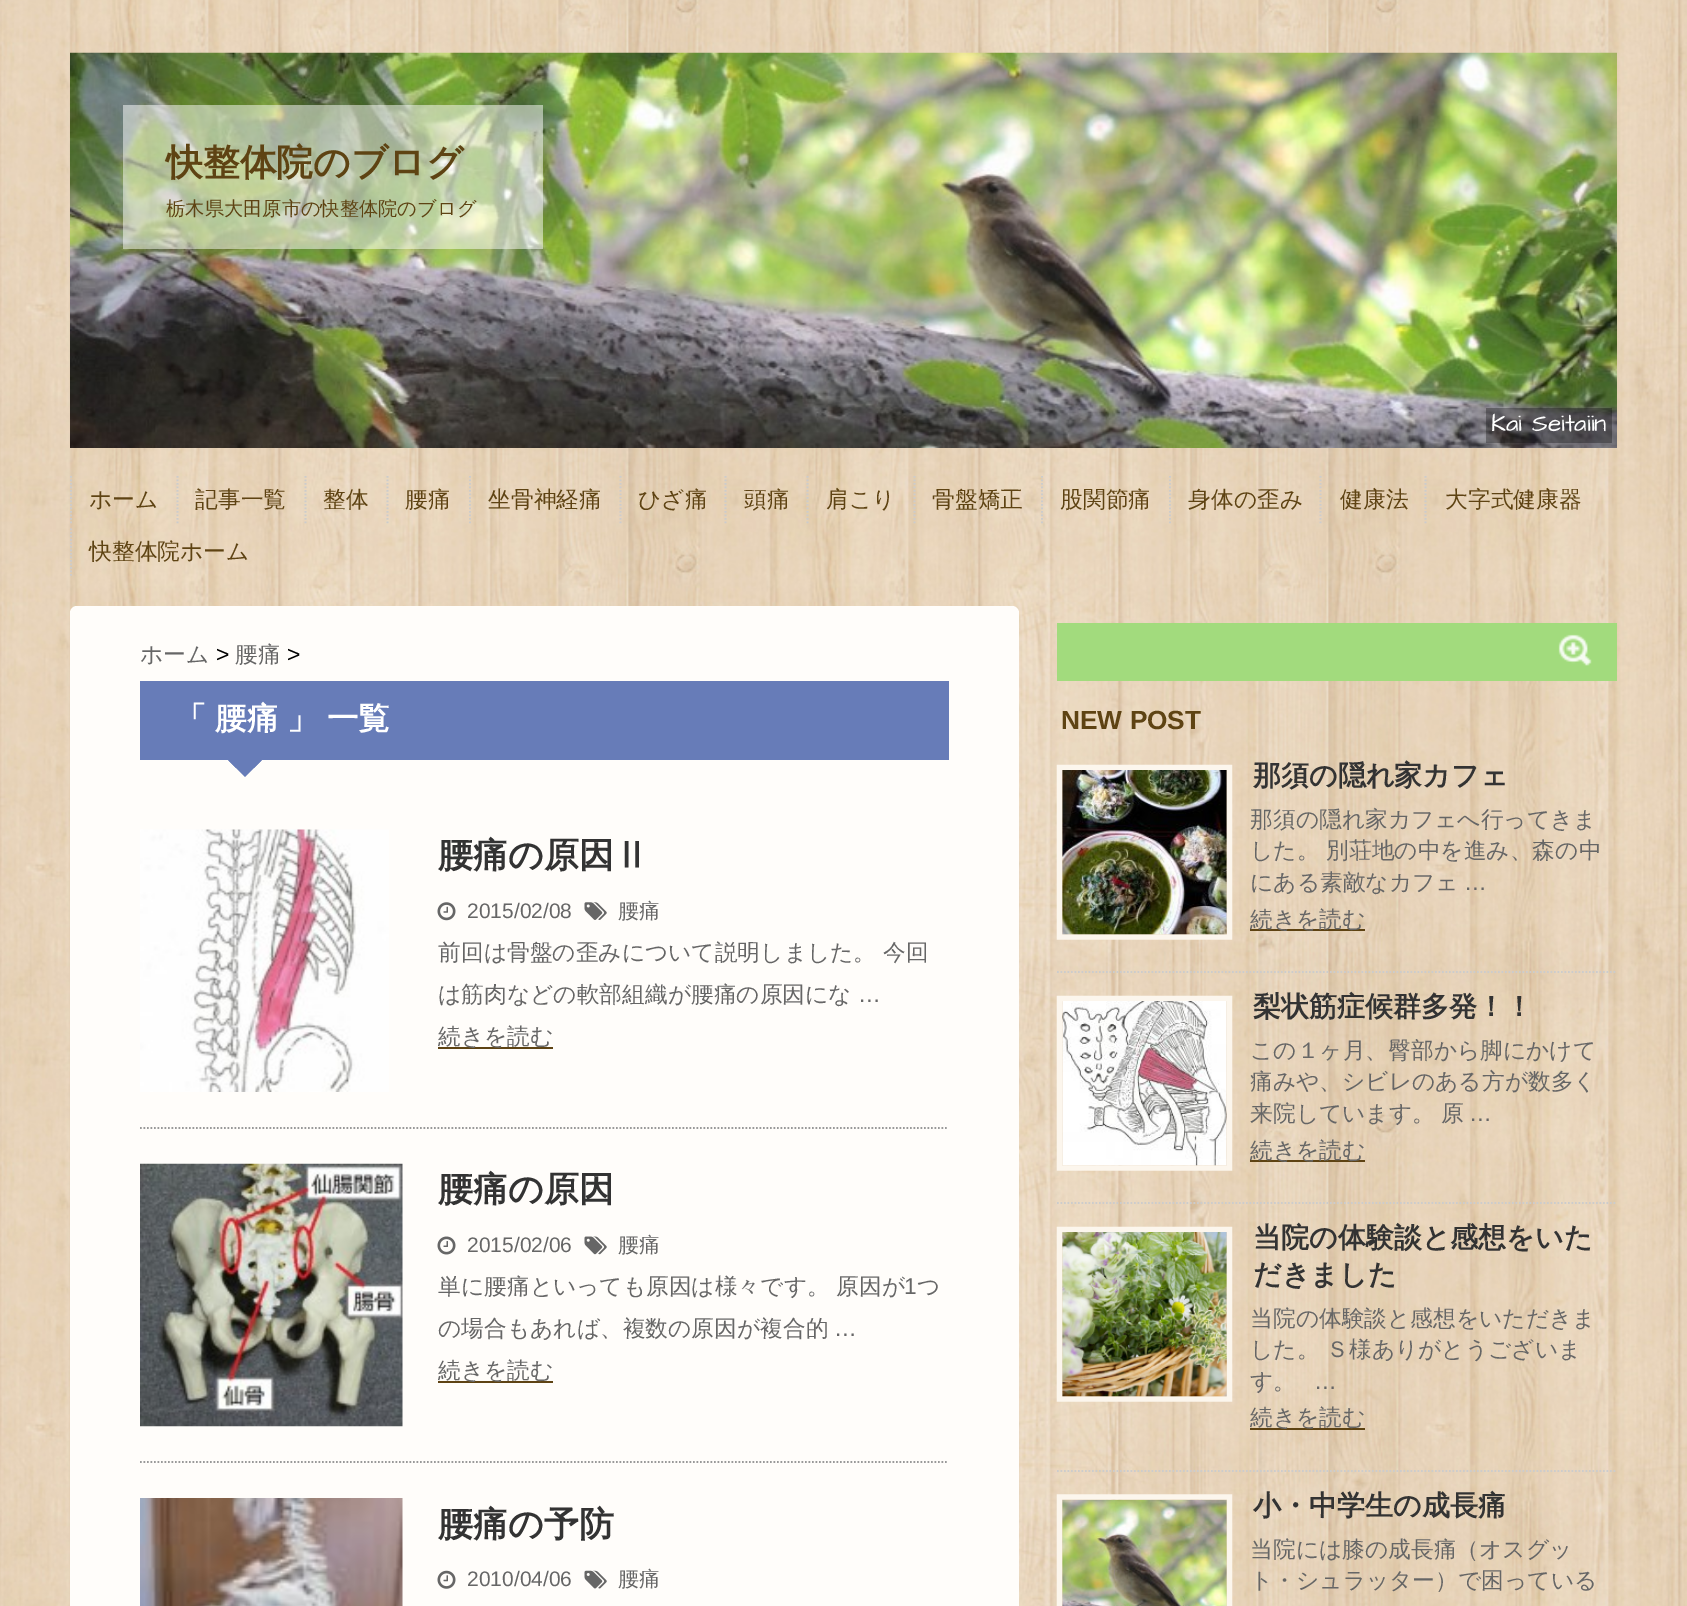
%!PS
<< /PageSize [1687 1606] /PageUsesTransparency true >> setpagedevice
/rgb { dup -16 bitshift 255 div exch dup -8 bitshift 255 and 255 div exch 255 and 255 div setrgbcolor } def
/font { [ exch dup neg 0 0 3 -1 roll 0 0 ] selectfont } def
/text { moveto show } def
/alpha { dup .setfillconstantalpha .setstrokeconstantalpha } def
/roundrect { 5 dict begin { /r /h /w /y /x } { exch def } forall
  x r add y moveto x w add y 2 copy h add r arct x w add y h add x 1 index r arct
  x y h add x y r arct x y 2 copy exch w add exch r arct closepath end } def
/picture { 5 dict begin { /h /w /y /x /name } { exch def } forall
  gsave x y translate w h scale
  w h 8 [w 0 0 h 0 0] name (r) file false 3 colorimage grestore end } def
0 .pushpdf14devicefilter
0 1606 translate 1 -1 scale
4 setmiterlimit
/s1 { /WenQuanYiZenHei-Bold 36.75 font 16#5E4313 rgb } def
/s2 { /WenQuanYiZenHei-Medium 19.25 font 16#5E4313 rgb } def
/s3 { /ArchitectsDaughter-Regular 24.5 font 16#FFFFFF rgb } def
/s4 { /WenQuanYiZenHei-Medium 22.75 font 16#5E4313 rgb } def
/s5 { /WenQuanYiZenHei-Medium 22.75 font 16#666666 rgb } def
/s6 { /LiberationSans-Regular 22.75 font 16#000000 rgb } def
/s7 { /WenQuanYiZenHei-Bold 31.5 font 16#FFFFFF rgb } def
/s8 { /WenQuanYiZenHei-Bold 35 font 16#333333 rgb } def
/s9 { /LiberationSans-Regular 21 font 16#666666 rgb } def
/s10 { /WenQuanYiZenHei-Medium 21 font 16#666666 rgb } def
/s11 { /LiberationSans-Regular 22.75 font 16#666666 rgb } def
/s12 { /LiberationSans-Bold 26.25 font 16#5E4313 rgb } def
/s13 { /WenQuanYiZenHei-Bold 28 font 16#333333 rgb } def
16#FFFFFF rgb
0 0 1687 1606 rectfill
(pic1.raw) 0 0 1687 1606 picture
(pic2.raw) 70 52 1547 396 picture
0.5 alpha
123 105 420 144 rectfill
1 alpha
s1
(快整体院のブログ) 166 175 text
s2
(栃木県大田原市の快整体院のブログ) 166 215 text
0.3 alpha
16#000000 rgb
1486 408 126 35 rectfill
1 alpha
s3
(Kai Seitaiin) 1491 431 text
16#CCCCCC rgb
1.8 setlinewidth
[1.75 1.75] 0 setdash
71 476 moveto 71 525 lineto stroke
s4
(ホーム) 89 507 text
16#CCCCCC rgb
177.5 476 moveto 177.5 525 lineto stroke
s4
(記事一覧) 195 507 text
16#CCCCCC rgb
305.5 476 moveto 305.5 525 lineto stroke
s4
(整体) 323 507 text
16#CCCCCC rgb
387.5 476 moveto 387.5 525 lineto stroke
s4
(腰痛) 405 507 text
16#CCCCCC rgb
470 476 moveto 470 525 lineto stroke
s4
(坐骨神経痛) 488 507 text
16#CCCCCC rgb
620.5 476 moveto 620.5 525 lineto stroke
s4
(ひざ痛) 638 507 text
16#CCCCCC rgb
725.5 476 moveto 725.5 525 lineto stroke
s4
(頭痛) 744 507 text
16#CCCCCC rgb
807.5 476 moveto 807.5 525 lineto stroke
s4
(肩こり) 826 507 text
16#CCCCCC rgb
914.5 476 moveto 914.5 525 lineto stroke
s4
(骨盤矯正) 932 507 text
16#CCCCCC rgb
1042 476 moveto 1042 525 lineto stroke
s4
(股関節痛) 1060 507 text
16#CCCCCC rgb
1170 476 moveto 1170 525 lineto stroke
s4
(身体の歪み) 1188 507 text
16#CCCCCC rgb
1320.5 476 moveto 1320.5 525 lineto stroke
s4
(健康法) 1340 507 text
16#CCCCCC rgb
1425.5 476 moveto 1425.5 525 lineto stroke
s4
(大字式健康器) 1445 507 text
16#CCCCCC rgb
71 528.5 moveto 71 577.5 lineto stroke
s4
(快整体院ホーム) 89 559 text
16#FFFDFA rgb
70 606 949 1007 7 roundrect fill
s5
(ホーム) 140 662 text
s6
(>) 216 662 text
s5
(腰痛) 235 662 text
s6
(>) 287 662 text
16#677CB8 rgb
140 681 809 79 rectfill
s7
(「) 175 729 text
(腰痛) 215 729 text
287 729 moveto -1 0 32 (」 一覧) widthshow
16#677CB8 rgb
227.5 759.5 moveto 262.5 759.5 lineto 245 777 lineto closepath fill
231 759.5 moveto 230 759.5 229 760 228.5 760.5 curveto 236 768 lineto 254 768 lineto 261.5 760.5 lineto 261 760 260 759.5 259 759.5 curveto closepath fill
16#999999 rgb
140 1128 moveto 948.5 1128 lineto stroke
(pic3.raw) 140 829 249 263 picture
s8
(腰痛の原因Ⅱ) 438 867 text
(pic4.raw) 437 902 19 19 picture
s9
(2015/02/08) 467 918 text
(pic5.raw) 584 902 23 18 picture
s10
(腰痛) 618 918 text
s5
(前回は骨盤の歪みについて説明しました。 今回) 438 960 text
(は筋肉などの軟部組織が腰痛の原因にな) 438 1002 text
s11
(…) 858 1002 text
16#5E4313 rgb
438 1047 115 2 rectfill
s5
(続きを読む) 438 1044 text
16#999999 rgb
140 1462 moveto 948.5 1462 lineto stroke
(pic6.raw) 140 1163 263 264 picture
s8
(腰痛の原因) 438 1201 text
(pic7.raw) 437 1236 19 19 picture
s9
(2015/02/06) 467 1252 text
(pic8.raw) 584 1236 23 19 picture
s10
(腰痛) 618 1252 text
s5
(単に腰痛といっても原因は様々です。 原因が) 438 1294 text
s11
(1) 904 1294 text
s5
(つ) 917 1294 text
(の場合もあれば、複数の原因が複合的) 438 1336 text
s11
(…) 834 1336 text
16#5E4313 rgb
438 1381 115 2 rectfill
s5
(続きを読む) 438 1378 text
(pic9.raw) 140 1498 263 108 picture
s8
(腰痛の予防) 438 1536 text
(pic10.raw) 437 1570 19 19 picture
s9
(2010/04/06) 467 1586 text
(pic11.raw) 584 1570 23 19 picture
s10
(腰痛) 618 1586 text
16#A2DB7D rgb
1057 623 560 58 rectfill
(pic12.raw) 1558 634 34 32 picture
s12
(NEW POST) 1061 729 text
16#CCCCCC rgb
1057 972 moveto 1617 972 lineto stroke
16#FCF6ED rgb
5.2 setlinewidth
[] 0 setdash
1059.5 767.5 moveto 1229.5 767.5 lineto 1229.5 937 lineto 1059.5 937 lineto closepath stroke
(pic13.raw) 1062 770 165 165 picture
s13
(那須の隠れ家カフェ) 1253 785 text
s5
(那須の隠れ家カフェへ行ってきま) 1250 827 text
(した。 別荘地の中を進み、森の中) 1250 858 text
(にある素敵なカフェ) 1250 890 text
s11
(…) 1464 890 text
16#5E4313 rgb
1250 929 115 2 rectfill
s5
(続きを読む) 1250 927 text
16#CCCCCC rgb
1.8 setlinewidth
[1.75 1.75] 0 setdash
1057 1203 moveto 1617 1203 lineto stroke
16#FCF6ED rgb
5.2 setlinewidth
[] 0 setdash
1059.5 998.5 moveto 1229.5 998.5 lineto 1229.5 1168 lineto 1059.5 1168 lineto closepath stroke
(pic14.raw) 1062 1001 165 165 picture
s13
(梨状筋症候群多発！！) 1253 1016 text
s5
(この１ヶ月、臀部から脚にかけて) 1250 1058 text
(痛みや、シビレのある方が数多く) 1250 1089 text
(来院しています。 原) 1250 1121 text
s11
(…) 1469 1121 text
16#5E4313 rgb
1250 1160 115 2 rectfill
s5
(続きを読む) 1250 1158 text
16#CCCCCC rgb
1.8 setlinewidth
[1.75 1.75] 0 setdash
1057 1471 moveto 1617 1471 lineto stroke
16#FCF6ED rgb
5.2 setlinewidth
[] 0 setdash
1059.5 1229.5 moveto 1229.5 1229.5 lineto 1229.5 1399 lineto 1059.5 1399 lineto closepath stroke
(pic15.raw) 1062 1232 165 165 picture
s13
(当院の体験談と感想をいた) 1253 1247 text
(だきました) 1253 1284 text
s5
(当院の体験談と感想をいただきま) 1250 1326 text
(した。 Ｓ様ありがとうございま) 1250 1357 text
(す。) 1250 1389 text
s11
(…) 1314 1389 text
16#5E4313 rgb
1250 1428 115 2 rectfill
s5
(続きを読む) 1250 1425 text
16#FCF6ED rgb
1059.5 1497 moveto 1229.5 1497 lineto 1229.5 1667 lineto 1059.5 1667 lineto closepath stroke
(pic16.raw) 1062 1499 165 107 picture
s13
(小・中学生の成長痛) 1253 1515 text
s5
(当院には膝の成長痛（オスグッ) 1250 1557 text
(ト・シュラッター）で困っている) 1250 1588 text
.poppdf14devicefilter showpage
